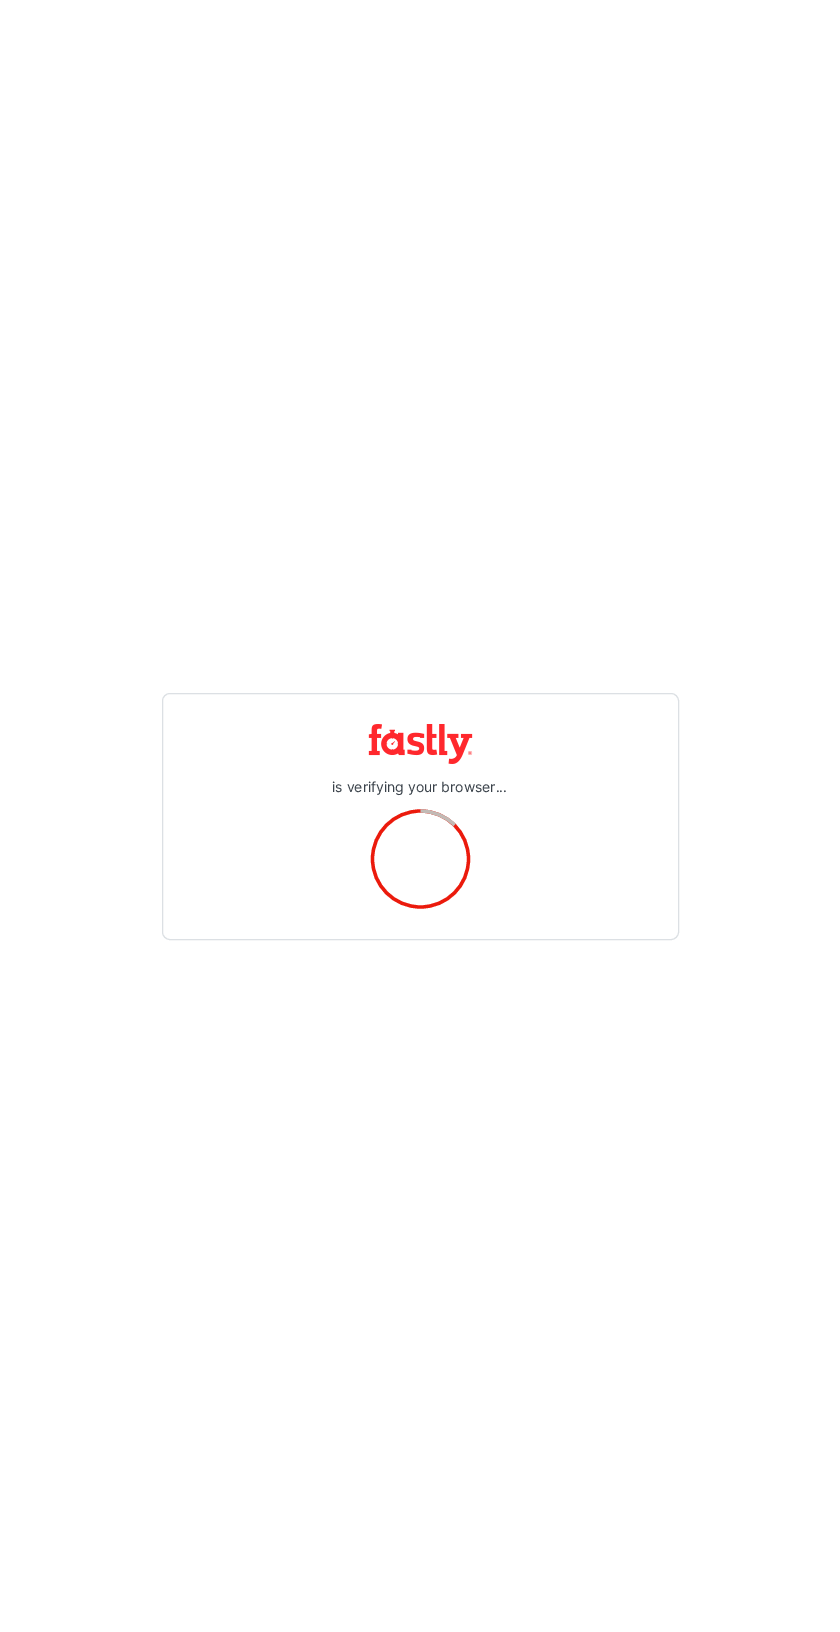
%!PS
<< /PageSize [840 1632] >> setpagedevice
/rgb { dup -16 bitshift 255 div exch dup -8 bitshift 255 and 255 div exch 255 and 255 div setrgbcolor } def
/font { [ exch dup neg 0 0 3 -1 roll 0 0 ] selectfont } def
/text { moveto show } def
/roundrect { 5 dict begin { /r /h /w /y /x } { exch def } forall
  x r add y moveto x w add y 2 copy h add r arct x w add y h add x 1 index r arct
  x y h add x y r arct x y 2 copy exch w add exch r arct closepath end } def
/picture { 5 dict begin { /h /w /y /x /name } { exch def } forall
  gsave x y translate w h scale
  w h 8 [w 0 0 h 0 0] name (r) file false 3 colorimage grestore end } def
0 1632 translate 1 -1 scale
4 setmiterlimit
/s1 { /Inter-Regular 14 font 16#3A424A rgb } def
16#FFFFFF rgb
0 0 840 1632 rectfill
16#DCE0E4 rgb
162.5 693.5 516 246 7.5 roundrect stroke
(pic1.raw) 368 724 105 40 picture
s1
(is verifying your browser...) 332 792 text
16#EB1A0C rgb
3.3 setlinewidth
372.5 859 moveto 372.5 832.5 394 811 420.5 811 curveto 447 811 468.5 832.5 468.5 859 curveto 468.5 885.5 447 907 420.5 907 curveto 394 907 372.5 885.5 372.5 859 curveto closepath stroke
16#C2BAB5 rgb
454.5 825 moveto 445.5 816 433 811 420.5 811 curveto stroke
showpage
